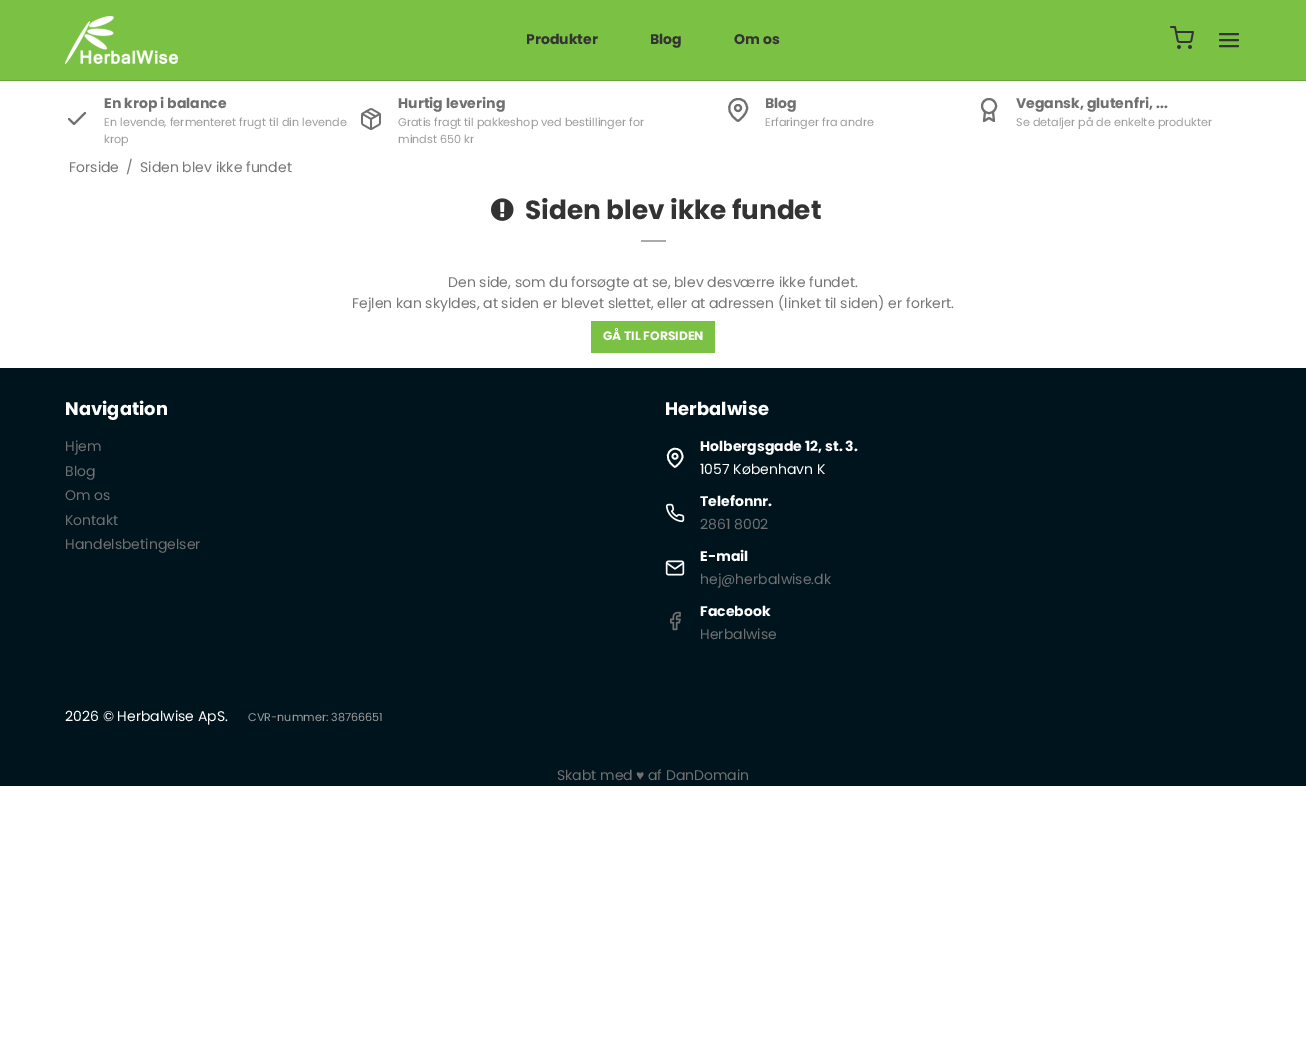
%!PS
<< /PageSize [1306 1056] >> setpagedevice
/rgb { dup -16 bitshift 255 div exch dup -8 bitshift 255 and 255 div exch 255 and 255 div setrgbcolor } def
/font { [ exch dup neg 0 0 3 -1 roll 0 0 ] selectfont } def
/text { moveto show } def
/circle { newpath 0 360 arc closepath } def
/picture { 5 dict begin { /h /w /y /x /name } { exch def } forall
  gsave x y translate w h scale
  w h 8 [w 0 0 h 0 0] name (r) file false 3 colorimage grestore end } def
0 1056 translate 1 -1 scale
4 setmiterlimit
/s1 { /Poppins-Bold 14 font 16#333333 rgb } def
/s2 { /Poppins-Bold 14 font 16#707070 rgb } def
/s3 { /Poppins-Regular 11.2 font 16#9D9D9D rgb } def
/s4 { /Poppins-Regular 14 font 16#777777 rgb } def
/s5 { /Poppins-Bold 26.25 font 16#333333 rgb } def
/s6 { /Poppins-Bold 12.25 font 16#FFFFFF rgb } def
/s7 { /Poppins-Bold 18 font 16#FFFFFF rgb } def
/s8 { /Poppins-Regular 14 font 16#707070 rgb } def
/s9 { /Poppins-Bold 14 font 16#FFFFFF rgb } def
/s10 { /Poppins-Regular 14 font 16#FFFFFF rgb } def
/s11 { /LiberationSans-Regular 14 font 16#707070 rgb } def
16#FFFFFF rgb
0 0 1306 1056 rectfill
16#7BC144 rgb
0 0 1306 80 rectfill
16#69A43A rgb
0 80 1306 1 rectfill
(pic1.raw) 65 16 113 48 picture
s1
(Produkter) 526 44 text
(Blog) 650 44 text
(Om os) 734 44 text
(pic2.raw) 1170 26 24 23 picture
2 setlinewidth
1 setlinecap
1 setlinejoin
1220 40 moveto 1238 40 lineto 1220 34 moveto 1238 34 lineto 1220 46 moveto 1238 46 lineto stroke
16#707070 rgb
85 113 moveto 74 124 lineto 69 119 lineto stroke
(En krop i balance) 104 108 text
s3
(En levende, fermenteret frugt til din levende) 104 126 text
(krop) 104 143 text
(pic3.raw) 361 108 20 22 picture
s2
(Hurtig levering) 398 108 text
s3
(Gratis fragt til pakkeshop ved bestillinger for) 398 126 text
(mindst 650 kr) 398 143 text
16#707070 rgb
747 108 moveto 747 115 738 121 738 121 curveto 719 108.5 735 92.5 744.5 101.5 curveto 746 103.5 747 105.5 747 108 curveto closepath stroke
0 setlinecap
0 setlinejoin
738 108 3 circle stroke
s2
(Blog) 765 108 text
s3
(Erfaringer fra andre) 765 126 text
16#707070 rgb
989 106 7 circle stroke
1 setlinecap
1 setlinejoin
985 112 moveto 984 121 lineto 989 118 lineto 994 121 lineto 993 112 lineto stroke
s2
(Vegansk, glutenfri, ...) 1016 108 text
s3
(Se detaljer på de enkelte produkter) 1016 126 text
s4
(Forside) 69 172 text
(/) 126 172 text
(Siden blev ikke fundet) 140 172 text
(pic4.raw) 491 198 23 23 picture
s5
(Siden blev ikke fundet) 525 219 text
16#AAAAAA rgb
641 240 25 2 rectfill
s4
(Den side, som du forsøgte at se, blev desværre ikke fundet.) 448 287 text
(Fejlen kan skyldes, at siden er blevet slettet, eller at adressen \(linket til siden\) er forkert.) 352 308 text
16#7BC144 rgb
591 321 124 32 rectfill
s6
(GÅ TIL FORSIDEN) 603 340 text
16#00141E rgb
0 368 1306 418 rectfill
s7
(Navigation) 65 415 text
s8
(Hjem) 65 451 text
(Blog) 65 476 text
(Om os) 65 500 text
(Kontakt) 65 525 text
(Handelsbetingelser) 65 549 text
s7
(Herbalwise) 665 415 text
1.7 setlinewidth
682.5 456.5 moveto 682.5 462 675 467 675 467 curveto 659.5 457 672.5 443 680.5 451 curveto 681.5 452.5 682.5 454.5 682.5 456.5 curveto closepath stroke
0 setlinecap
0 setlinejoin
675 456.3 2.5 circle stroke
s9
(Holbergsgade 12, st. 3.) 700 451 text
s10
(1057 København K) 700 474 text
(pic5.raw) 665 503 20 20 picture
s9
(Telefonnr.) 700 506 text
s8
(2861 8002) 700 529 text
(pic6.raw) 665 560 20 16 picture
s9
(E-mail) 700 561 text
s8
(hej@herbalwise.dk) 700 584 text
(pic7.raw) 670 611 11 20 picture
s9
(Facebook) 700 616 text
s8
(Herbalwise) 700 639 text
s10
(2026 © Herbalwise ApS.) 65 721 text
s3
(CVR-nummer: 38766651) 248 721 text
s8
(Skabt med) 557 780 text
s11
(♥) 636 780 text
s8
(af DanDomain) 648 780 text
showpage
